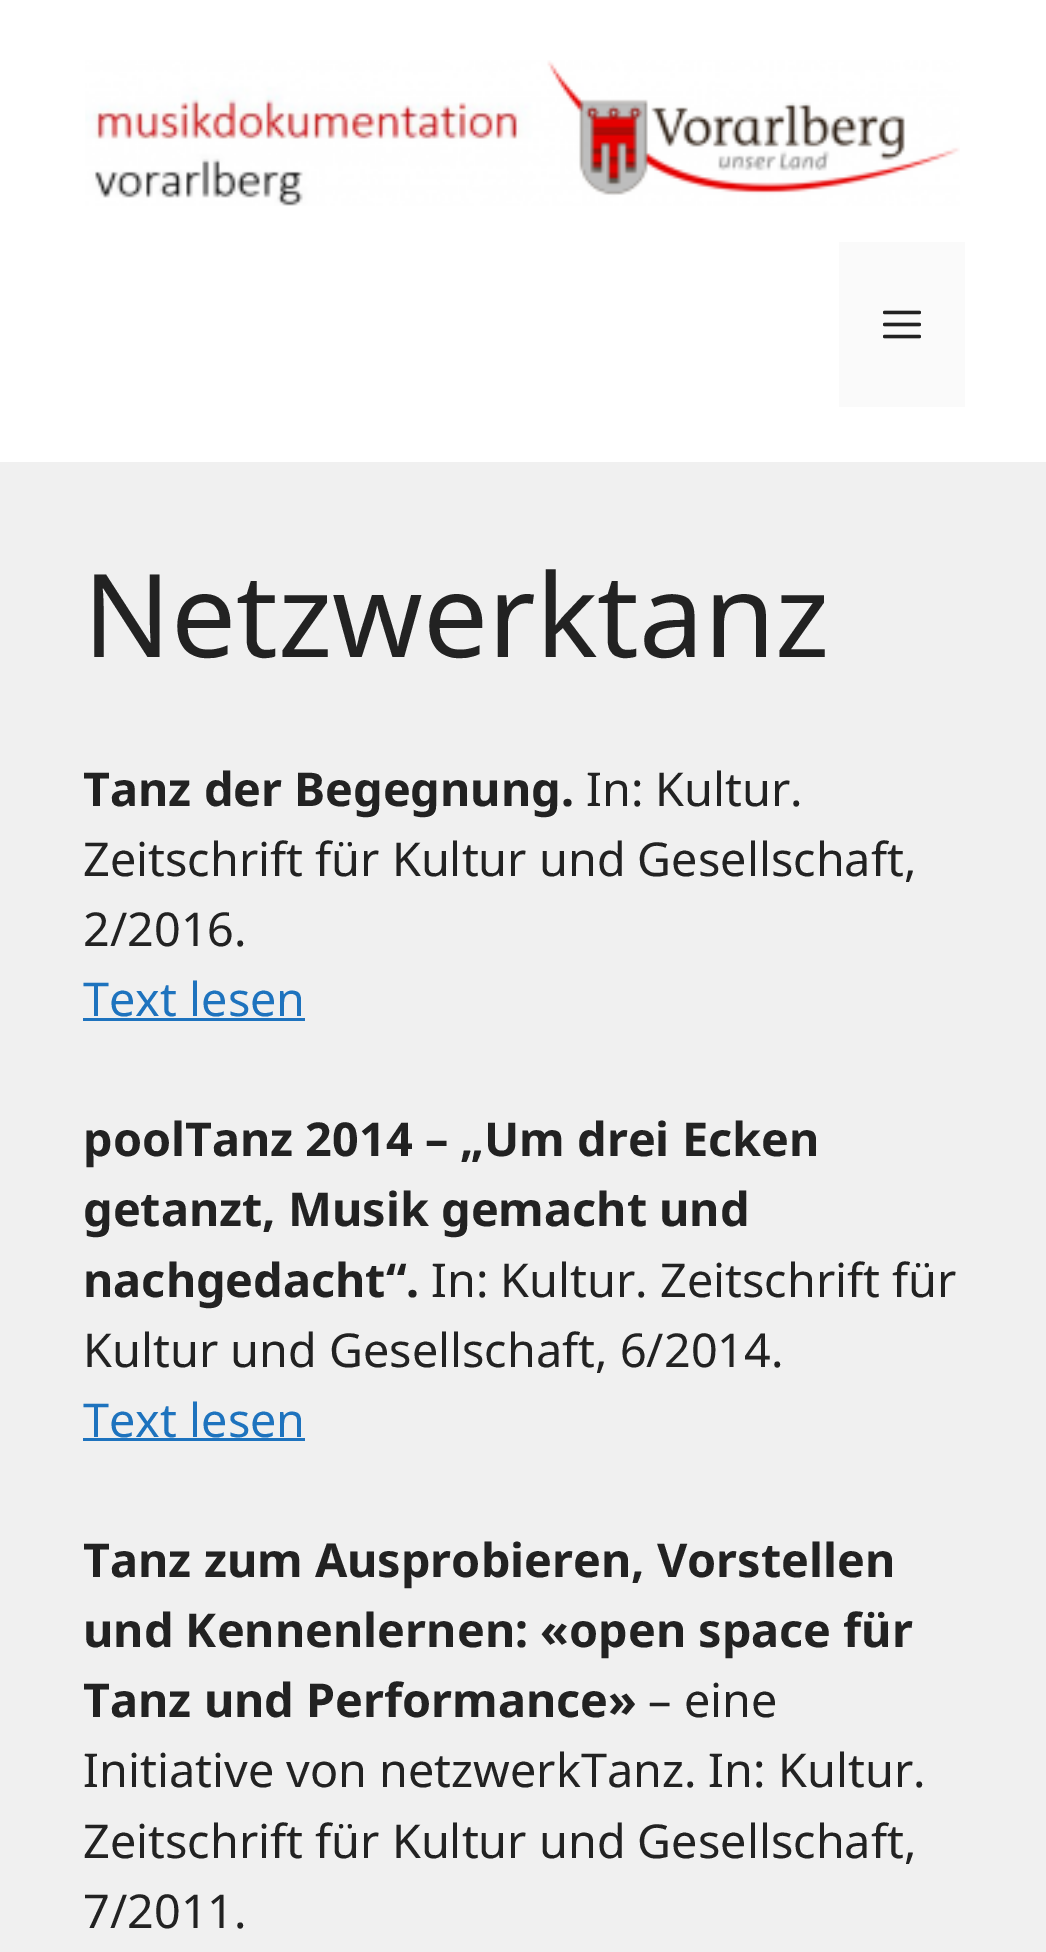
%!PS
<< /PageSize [1046 1952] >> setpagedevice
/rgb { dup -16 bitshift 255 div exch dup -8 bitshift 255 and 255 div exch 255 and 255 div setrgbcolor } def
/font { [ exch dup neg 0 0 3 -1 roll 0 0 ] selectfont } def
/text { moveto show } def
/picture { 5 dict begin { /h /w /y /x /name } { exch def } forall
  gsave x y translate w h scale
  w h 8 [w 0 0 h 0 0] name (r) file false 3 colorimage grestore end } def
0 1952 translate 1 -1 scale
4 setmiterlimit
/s1 { /NotoSans-Regular 115.5 font 16#222222 rgb } def
/s2 { /NotoSans-Bold 46.75 font 16#222222 rgb } def
/s3 { /NotoSans-Regular 46.75 font 16#222222 rgb } def
/s4 { /NotoSans-Regular 46.75 font 16#1E73BE rgb } def
16#F0F0F0 rgb
0 0 1046 1952 rectfill
16#FFFFFF rgb
0 0 1046 462 rectfill
(pic1.raw) 85 60 875 146 picture
16#FAFAFA rgb
839 242 126 165 rectfill
(pic2.raw) 883 310 38 29 picture
s1
(Netzwerktanz) 83 657 text
s2
(Tanz der Begegnung.) 83 806 text
s3
(In: Kultur.) 586 806 text
(Zeitschrift für Kultur und Gesellschaft,) 83 876 text
(2/2016.) 83 946 text
s4
(Text lesen) 83 1016 text
83 1018 222 3 rectfill
s2
(poolTanz 2014 – „Um drei Ecken) 83 1156 text
(getanzt, Musik gemacht und) 83 1226 text
(nachgedacht“.) 83 1297 text
s3
(In: Kultur. Zeitschrift für) 431 1297 text
(Kultur und Gesellschaft, 6/2014.) 83 1367 text
s4
(Text lesen) 83 1437 text
83 1438 222 3 rectfill
s2
(Tanz zum Ausprobieren, Vorstellen) 83 1577 text
(und Kennenlernen: «open space für) 83 1647 text
(Tanz und Performance») 83 1717 text
s3
(– eine) 648 1717 text
(Initiative von netzwerkTanz. In: Kultur.) 83 1787 text
(Zeitschrift für Kultur und Gesellschaft,) 83 1858 text
(7/2011.) 83 1928 text
showpage
